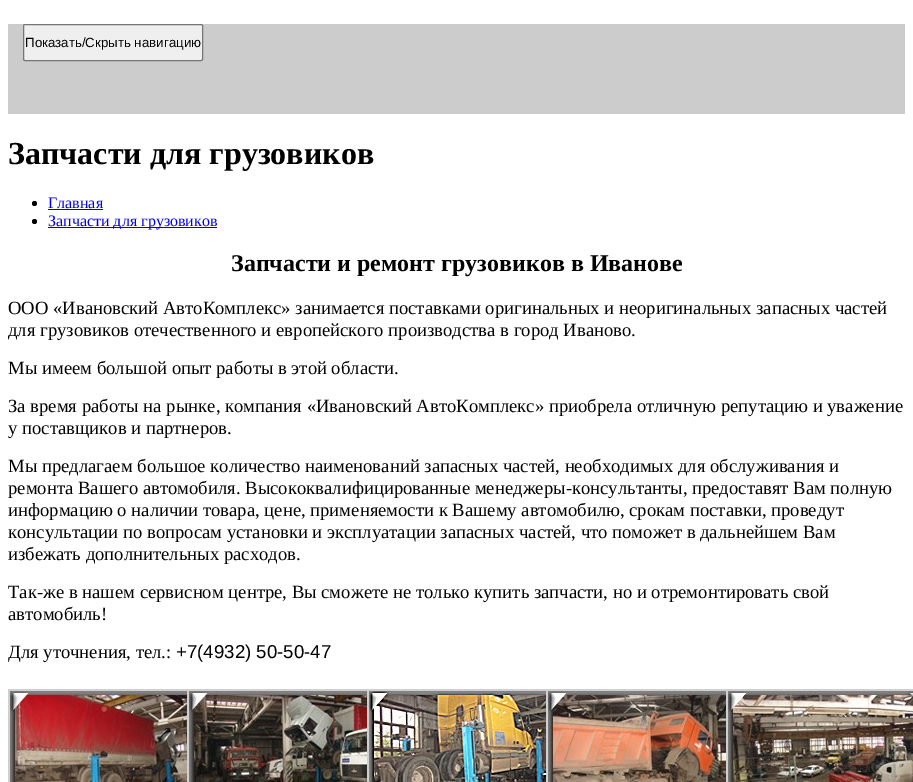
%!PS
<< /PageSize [913 782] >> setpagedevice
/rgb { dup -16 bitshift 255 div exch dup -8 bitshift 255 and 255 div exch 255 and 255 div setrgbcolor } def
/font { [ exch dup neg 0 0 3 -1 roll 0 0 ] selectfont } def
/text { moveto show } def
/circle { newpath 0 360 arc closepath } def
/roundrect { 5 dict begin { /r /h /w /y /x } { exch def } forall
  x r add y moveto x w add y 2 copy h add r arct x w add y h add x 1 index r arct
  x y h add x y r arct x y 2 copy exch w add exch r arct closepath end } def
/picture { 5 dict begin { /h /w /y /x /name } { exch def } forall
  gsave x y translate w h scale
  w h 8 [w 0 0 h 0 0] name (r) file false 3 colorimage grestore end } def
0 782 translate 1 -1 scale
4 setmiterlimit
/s1 { /LiberationSans-Regular 13.3 font 16#000000 rgb } def
/s2 { /LiberationSerif-Bold 32 font 16#000000 rgb } def
/s3 { /LiberationSerif-Regular 16 font 16#0000EE rgb } def
/s4 { /LiberationSerif-Bold 24 font 16#000000 rgb } def
/s5 { /LiberationSerif-Regular 18.65 font 16#000000 rgb } def
/s6 { /LiberationSans-Regular 18.65 font 16#000000 rgb } def
16#FFFFFF rgb
0 0 913 782 rectfill
16#CCCCCC rgb
8 24 897 90 rectfill
16#EFEFEF rgb
23.5 24.5 179 36 1.5 roundrect gsave fill grestore
16#767676 rgb
stroke
s1
(Показать/Скрыть навигацию) 25 47 text
s2
(Запчасти для грузовиков) 8 164 text
34.5 203.5 2.5 circle fill
s3
(Главная) 48 208 text
48 209 55 1 rectfill
16#000000 rgb
34.5 221.5 2.5 circle fill
16#0000EE rgb
48 227 169 1 rectfill
(Запчасти для грузовиков) 48 226 text
s4
(Запчасти и ремонт грузовиков в Иванове) 231 271 text
s5
(OOO «Ивановский АвтоКомплекс» занимается поставками оригинальных и неоригинальных запасных частей) 8 314 text
(для грузовиков отечественного и европейского производства в город Иваново.) 8 336 text
(Мы имеем большой опыт работы в этой области.) 8 374 text
(За время работы на рынке, компания «Ивановский АвтоКомплекс» приобрела отличную репутацию и уважение) 8 412 text
(у поставщиков и партнеров.) 8 434 text
(Мы предлагаем большое количество наименований запасных частей, необходимых для обслуживания и) 8 472 text
(ремонта Вашего автомобиля. Высококвалифицированные менеджеры-консультанты, предоставят Вам полную) 8 494 text
(информацию о наличии товара, цене, применяемости к Вашему автомобилю, срокам поставки, проведут) 8 516 text
(консультации по вопросам установки и эксплуатации запасных частей, что поможет в дальнейшем Вам) 8 538 text
(избежать дополнительных расходов.) 8 560 text
(Так-же в нашем сервисном центре, Вы сможете не только купить запчасти, но и отремонтировать свой) 8 598 text
(автомобиль!) 8 620 text
(Для уточнения, тел.:) 8 658 text
s6
(+7\(4932\) 50-50-47) 176 658 text
16#CFCFCF rgb
2 setlinewidth
9 690 202 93 rectstroke
(pic1.raw) 10 691 177 91 picture
188 690 202 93 rectstroke
(pic2.raw) 189 691 178 91 picture
368 690 202 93 rectstroke
(pic3.raw) 369 691 177 91 picture
547 690 202 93 rectstroke
(pic4.raw) 548 691 178 91 picture
727 690 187 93 rectstroke
(pic5.raw) 728 691 185 91 picture
showpage
